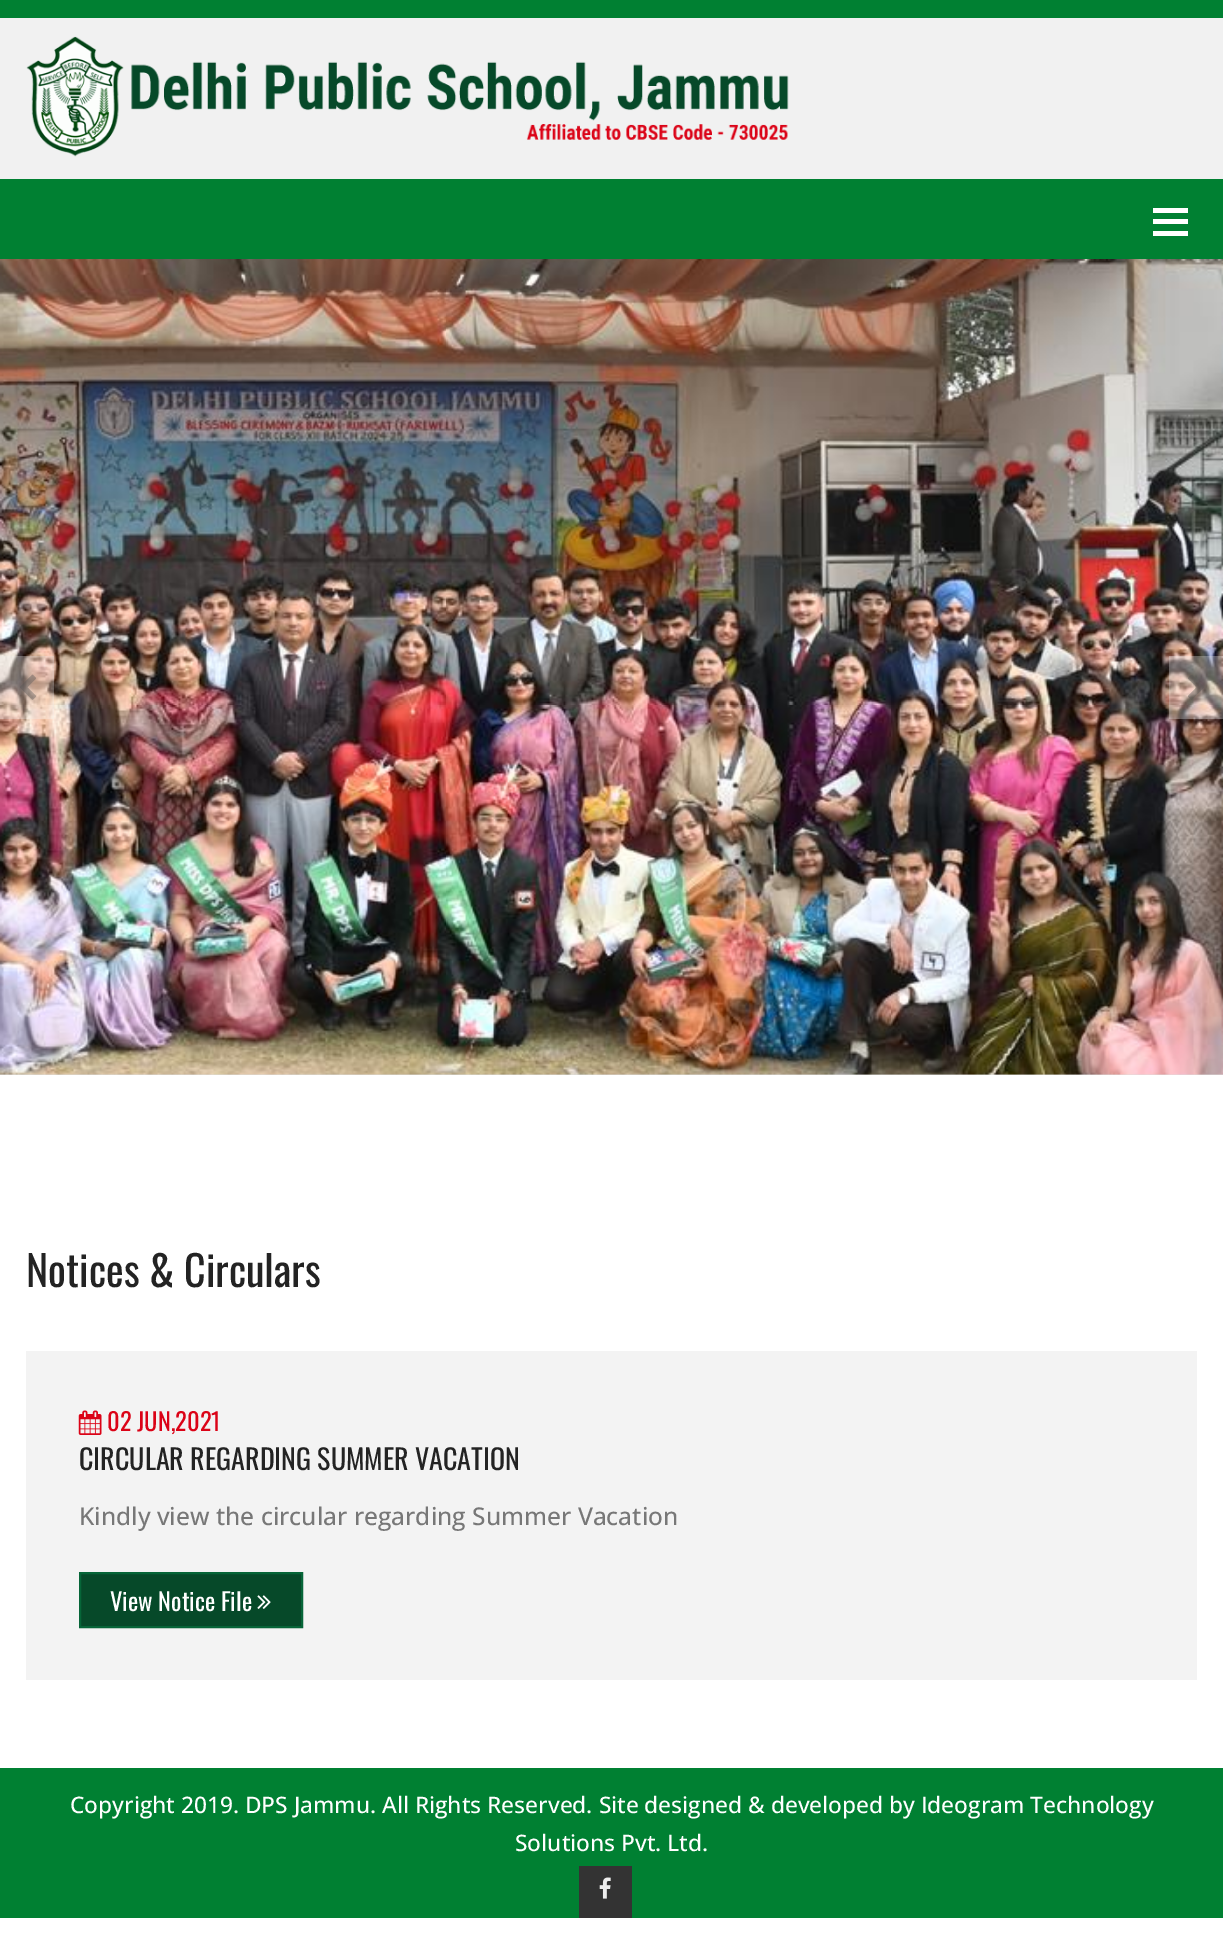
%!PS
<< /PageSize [1223 1933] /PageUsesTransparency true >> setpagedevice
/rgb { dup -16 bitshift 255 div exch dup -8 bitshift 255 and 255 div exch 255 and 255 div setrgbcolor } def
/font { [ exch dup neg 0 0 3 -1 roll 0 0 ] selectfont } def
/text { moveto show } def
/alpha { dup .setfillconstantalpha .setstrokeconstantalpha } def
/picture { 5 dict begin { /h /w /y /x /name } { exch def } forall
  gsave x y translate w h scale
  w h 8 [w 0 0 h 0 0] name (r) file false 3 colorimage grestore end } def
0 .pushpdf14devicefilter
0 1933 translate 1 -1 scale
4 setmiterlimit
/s1 { /Oswald-Regular 42 font 16#232323 rgb } def
/s2 { /Oswald-Regular 24.5 font 16#DB0317 rgb } def
/s3 { /Oswald-Regular 28 font 16#232323 rgb } def
/s4 { /OpenSans-Medium 24.5 font 16#777777 rgb } def
/s5 { /Oswald-Regular 24.5 font 16#FFFFFF rgb } def
/s6 { /OpenSans-Medium 22.75 font 16#FFFFFF rgb } def
16#FFFFFF rgb
0 0 1223 1933 rectfill
16#008032 rgb
0 0 1223 18 rectfill
16#F1F1F1 rgb
0 18 1223 161 rectfill
(pic1.raw) 26 36 763 121 picture
16#008032 rgb
0 179 1223 80 rectfill
16#FFFFFF rgb
1153 208 35 5 rectfill
1153 219 35 5 rectfill
1153 231 35 5 rectfill
16#DDDCDC rgb
0 1074 1223 1 rectfill
(pic2.raw) 0 259 1223 816 picture
0.32 alpha
16#F0F0F0 rgb
0 656 54 63 rectfill
1 alpha
(pic3.raw) 20 674 16 26 picture
0.32 alpha
1169 656 54 63 rectfill
1 alpha
(pic4.raw) 1188 675 16 25 picture
s1
(Notices & Circulars) 26 1287 text
16#F3F3F3 rgb
26 1351 1171 329 rectfill
(pic5.raw) 78 1410 24 25 picture
s2
(02 JUN,2021) 107 1431 text
s3
(CIRCULAR REGARDING SUMMER VACATION) 79 1470 text
s4
(Kindly view the circular regarding Summer Vacation) 79 1525 text
16#064929 rgb
80 1573 moveto 302 1573 lineto 302 1627 lineto 80 1627 lineto closepath gsave fill grestore
16#066538 rgb
2 setlinewidth
stroke
s5
(View Notice File) 110 1611 text
(pic6.raw) 257 1595 14 14 picture
16#008032 rgb
0 1768 1223 150 rectfill
s6
(Copyright 2019. DPS Jammu. All Rights Reserved. Site designed & developed by Ideogram Technology) 70 1813 text
(Solutions Pvt. Ltd.) 515 1851 text
16#333333 rgb
579 1866 53 52 rectfill
(pic7.raw) 599 1877 12 22 picture
.poppdf14devicefilter showpage
